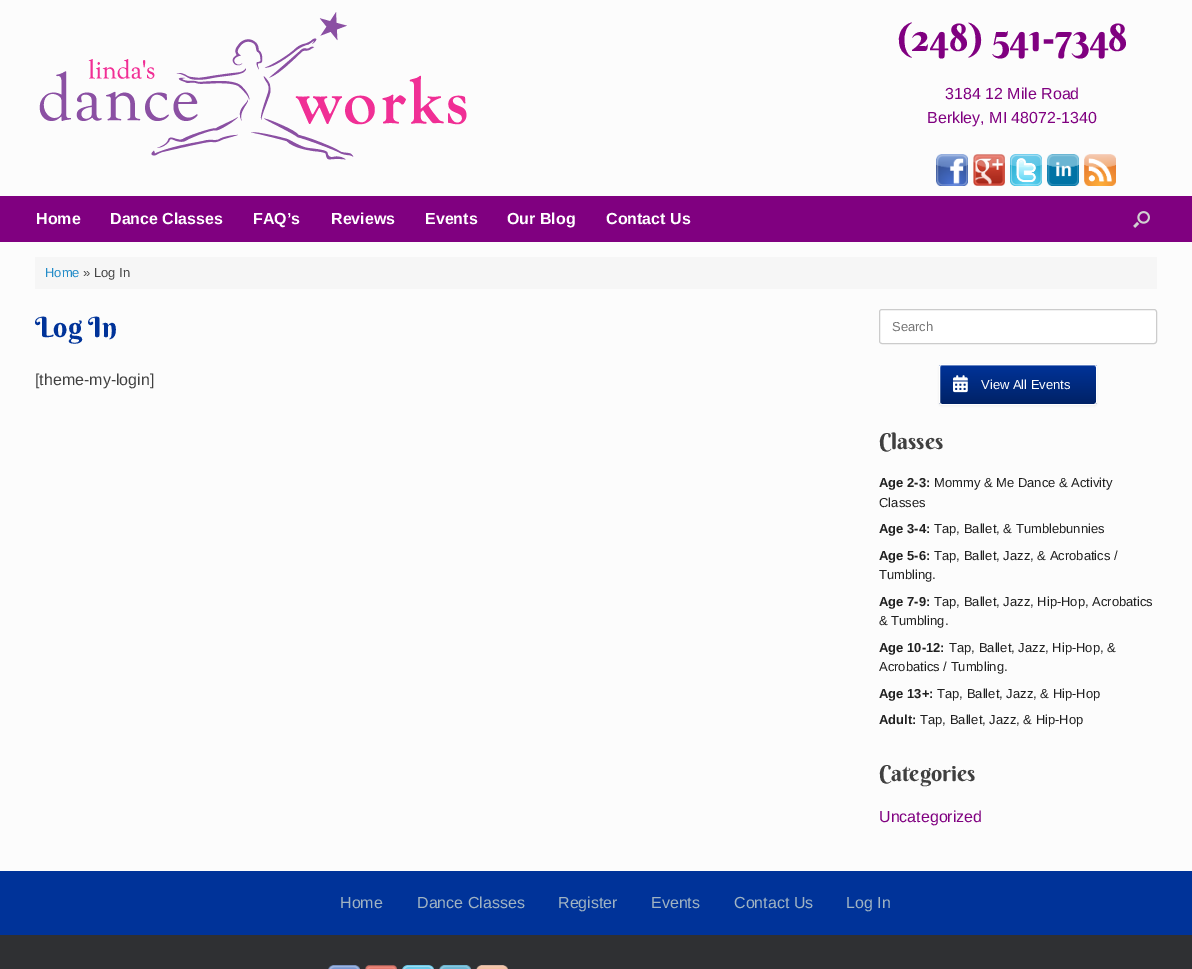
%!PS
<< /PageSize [1192 969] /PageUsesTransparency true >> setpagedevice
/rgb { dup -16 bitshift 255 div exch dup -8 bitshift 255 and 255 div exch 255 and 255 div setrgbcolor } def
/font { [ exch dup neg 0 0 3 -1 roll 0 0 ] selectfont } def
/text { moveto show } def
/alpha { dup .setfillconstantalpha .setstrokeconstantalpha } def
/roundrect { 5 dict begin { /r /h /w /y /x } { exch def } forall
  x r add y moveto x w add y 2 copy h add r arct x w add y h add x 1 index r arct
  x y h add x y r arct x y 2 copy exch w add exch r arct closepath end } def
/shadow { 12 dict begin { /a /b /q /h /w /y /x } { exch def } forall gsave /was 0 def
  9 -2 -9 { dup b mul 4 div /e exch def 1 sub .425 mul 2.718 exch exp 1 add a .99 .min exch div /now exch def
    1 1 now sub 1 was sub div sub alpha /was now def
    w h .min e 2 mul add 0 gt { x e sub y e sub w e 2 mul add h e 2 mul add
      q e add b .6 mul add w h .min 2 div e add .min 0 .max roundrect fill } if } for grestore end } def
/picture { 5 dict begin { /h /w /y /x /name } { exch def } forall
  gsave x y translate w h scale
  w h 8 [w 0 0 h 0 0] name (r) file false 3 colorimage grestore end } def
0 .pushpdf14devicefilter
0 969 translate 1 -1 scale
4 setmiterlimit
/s1 { /BerkshireSwash-Regular 37.75 font 16#800080 rgb } def
/s2 { /LiberationSans-Regular 16 font 16#800080 rgb } def
/s3 { /LiberationSans-Bold 16 font 16#FFFFFF rgb } def
/s4 { /LiberationSans-Regular 13 font 16#248CC8 rgb } def
/s5 { /LiberationSans-Regular 13 font 16#474747 rgb } def
/s6 { /BerkshireSwash-Regular 28 font 16#003399 rgb } def
/s7 { /LiberationSans-Regular 16 font 16#404040 rgb } def
/s8 { /LiberationSans-Regular 13 font 16#757575 rgb } def
/s9 { /LiberationSans-Regular 13 font 16#FFFFFF rgb } def
/s10 { /BerkshireSwash-Regular 22 font 16#404040 rgb } def
/s11 { /LiberationSans-Bold 13 font 16#202020 rgb } def
/s12 { /LiberationSans-Regular 13 font 16#202020 rgb } def
/s13 { /LiberationSans-Regular 16 font 16#A0B3C2 rgb } def
16#2F3033 rgb
0 0 1192 969 rectfill
16#FCFCFC rgb
0 0 1192 196 rectfill
(pic1.raw) 39 12 428 148 picture
s1
(\(248\) 541-7348) 897 51 text
s2
(3184 12 Mile Road) 945 99 text
(Berkley, MI 48072-1340) 927 123 text
(pic2.raw) 936 154 32 32 picture
(pic3.raw) 973 154 32 32 picture
(pic4.raw) 1010 154 32 32 picture
(pic5.raw) 1047 154 32 32 picture
(pic6.raw) 1084 154 32 32 picture
0 196 1192 46 rectfill
s3
(Home) 36 224 text
(Dance Classes) 110 224 text
(FAQ’s) 253 224 text
(Reviews) 331 224 text
(Events) 425 224 text
(Our Blog) 507 224 text
(Contact Us) 606 224 text
(pic7.raw) 1133 211 17 17 picture
16#FCFCFC rgb
0 242 1192 629 rectfill
16#F6F6F6 rgb
35 257 1122 32 rectfill
s4
(Home) 45 277 text
s5
(» Log In) 83 277 text
s6
(Log In) 35 337 text
s7
([theme-my-login]) 35 385 text
16#FFFFFF rgb
879.5 309.5 277 34 2.5 roundrect gsave fill grestore
16#CCCCCC rgb
stroke
s8
(Search) 892 331 text
16#000000 rgb
939 365 158 41 3 1 0.07 shadow
gsave
939 364 158 41 3 roundrect clip newpath
gsave 939 365 moveto 1097 365 lineto 1097 404 lineto 939 404 lineto closepath clip newpath
<< /ShadingType 2 /ColorSpace /DeviceRGB /Coords [940 404 940 365] /Extend [true true] /Function << /FunctionType 2 /Domain [0 1] /C0 [0 0.133 0.4] /C1 [0 0.2 0.6] /N 1 >> >> shfill grestore
grestore
16#335CAD rgb
942 366 moveto 1094 366 lineto 1095 366 1096 367 1096 368 curveto 1096 367 1096 365 1094 365 curveto 942 365 lineto 940 365 940 367 940 368 curveto 940 367 941 366 942 366 curveto closepath fill
16#FFFFFF rgb
939.5 364.5 157 40 2.5 roundrect stroke
(pic8.raw) 953 375 15 18 picture
(View All Events) 981 389 text
s10
(Classes) 879 449 text
s11
(Age 2-3:) 879 487 text
s12
(Mommy & Me Dance & Activity) 934 487 text
(Classes) 879 507 text
s11
(Age 3-4:) 879 533 text
s12
(Tap, Ballet, & Tumblebunnies) 934 533 text
s11
(Age 5-6:) 879 560 text
s12
(Tap, Ballet, Jazz, & Acrobatics /) 934 560 text
(Tumbling.) 879 579 text
s11
(Age 7-9:) 879 606 text
s12
(Tap, Ballet, Jazz, Hip-Hop, Acrobatics) 934 606 text
(& Tumbling.) 879 625 text
s11
(Age 10-12:) 879 652 text
s12
(Tap, Ballet, Jazz, Hip-Hop, &) 949 652 text
(Acrobatics / Tumbling.) 879 671 text
s11
(Age 13+:) 879 698 text
s12
(Tap, Ballet, Jazz, & Hip-Hop) 937 698 text
s11
(Adult:) 879 724 text
s12
(Tap, Ballet, Jazz, & Hip-Hop) 920 724 text
s10
(Categories) 879 781 text
s2
(Uncategorized) 879 822 text
16#003399 rgb
0 871 1192 64 rectfill
s13
(Home) 340 908 text
(Dance Classes) 417 908 text
(Register) 558 908 text
(Events) 651 908 text
(Contact Us) 734 908 text
(Log In) 846 908 text
(pic9.raw) 328 965 32 4 picture
(pic10.raw) 365 965 32 4 picture
(pic11.raw) 402 965 32 4 picture
(pic12.raw) 439 965 32 4 picture
(pic13.raw) 476 965 32 4 picture
.poppdf14devicefilter showpage
